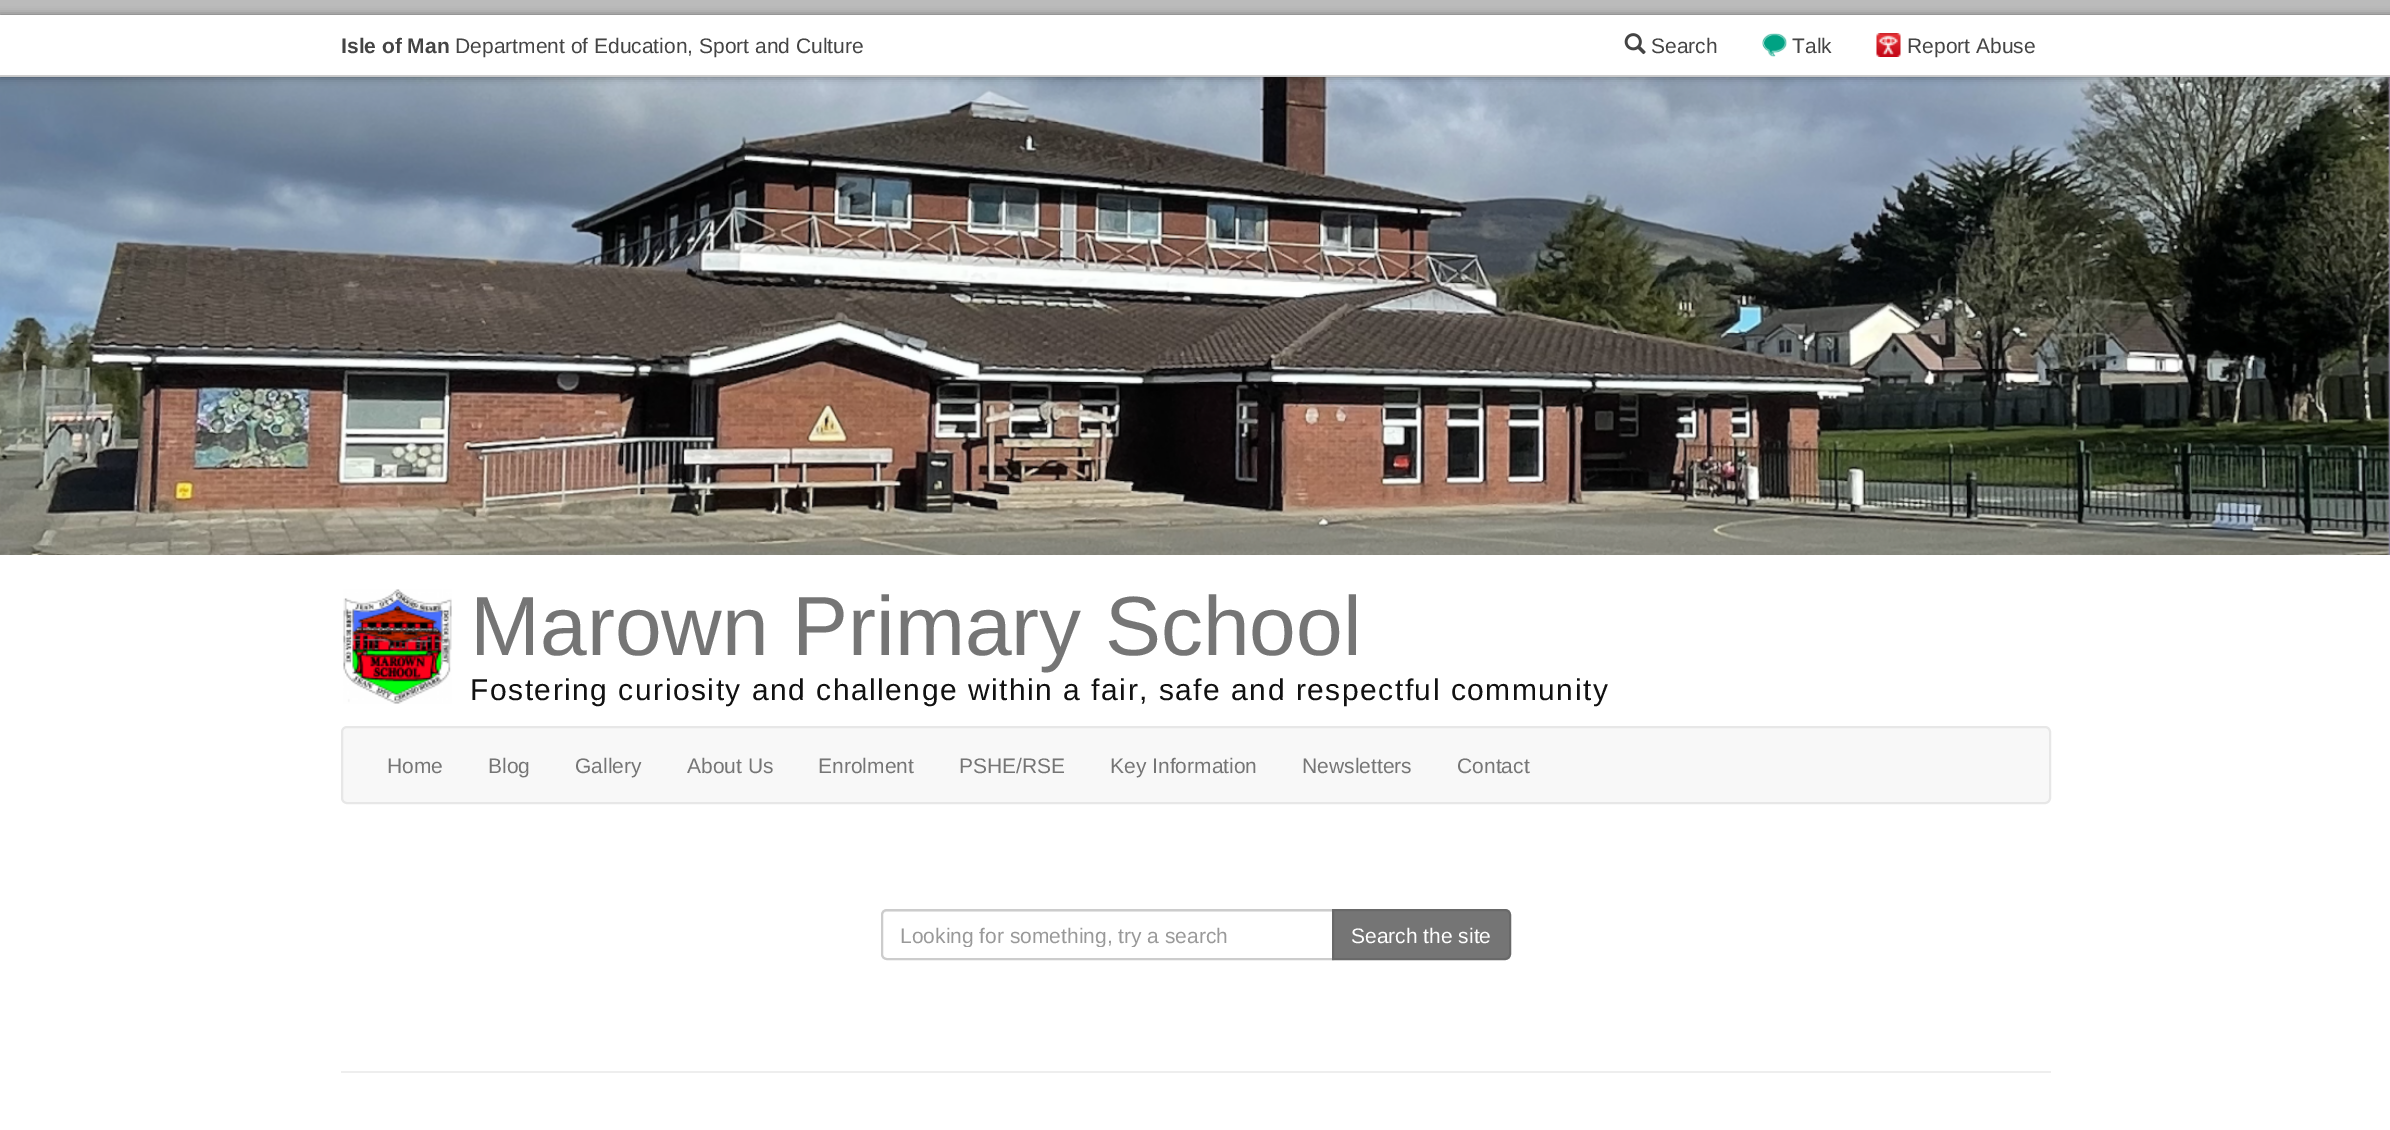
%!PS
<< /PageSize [2390 1130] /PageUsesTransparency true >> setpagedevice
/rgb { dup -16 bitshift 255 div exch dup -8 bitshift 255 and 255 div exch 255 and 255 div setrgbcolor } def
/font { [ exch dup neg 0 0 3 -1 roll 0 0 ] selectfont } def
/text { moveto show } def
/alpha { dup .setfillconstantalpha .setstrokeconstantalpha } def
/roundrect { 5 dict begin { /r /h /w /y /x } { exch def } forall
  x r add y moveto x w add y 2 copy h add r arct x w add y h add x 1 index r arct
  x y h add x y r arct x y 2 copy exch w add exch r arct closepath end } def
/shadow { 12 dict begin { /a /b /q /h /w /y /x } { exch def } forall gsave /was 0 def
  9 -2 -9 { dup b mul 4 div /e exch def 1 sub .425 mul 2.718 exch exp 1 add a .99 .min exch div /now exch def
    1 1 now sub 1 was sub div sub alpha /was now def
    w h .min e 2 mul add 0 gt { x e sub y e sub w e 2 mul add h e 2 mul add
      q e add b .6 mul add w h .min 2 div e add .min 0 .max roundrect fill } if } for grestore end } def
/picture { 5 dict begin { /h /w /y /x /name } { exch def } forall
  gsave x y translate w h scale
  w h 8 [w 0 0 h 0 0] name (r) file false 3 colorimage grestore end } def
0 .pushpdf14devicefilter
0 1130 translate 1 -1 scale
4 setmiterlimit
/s1 { /LiberationSans-Bold 21 font 16#444444 rgb } def
/s2 { /LiberationSans-Regular 21 font 16#444444 rgb } def
/s3 { /LiberationSans-Regular 84 font 16#757575 rgb } def
/s4 { /LiberationSans-Regular 21 font 16#757575 rgb } def
/s5 { /LiberationSans-Regular 21 font 16#999999 rgb } def
/s6 { /LiberationSans-Regular 21 font 16#FFFFFF rgb } def
16#FFFFFF rgb
0 0 2390 1130 rectfill
16#BBBBBB rgb
0 0 2390 15 rectfill
(pic4.raw) 0 76 2390 479 picture
gsave
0 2 moveto 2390 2 lineto 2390 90 lineto 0 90 lineto closepath 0 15 moveto 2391 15 lineto 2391 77 lineto 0 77 lineto closepath eoclip newpath
16#000000 rgb
0 15 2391 62 0 4 0.4 shadow
grestore
0.9 alpha
16#FFFFFF rgb
0 76 2390 1 rectfill
0.2 alpha
16#000000 rgb
0 75 2390 2 rectfill
1 alpha
s1
(Isle of Man) 341 53 text
s2
(Department of Education, Sport and Culture) 455 53 text
(pic1.raw) 1624 33 22 22 picture
(Search) 1651 53 text
(pic2.raw) 1762 33 25 24 picture
(Talk) 1792 53 text
(pic3.raw) 1876 33 25 24 picture
(Report Abuse) 1907 53 text
(pic5.raw) 343 589 109 115 picture
s3
(Marown Primary School) 470 655 text
/LiberationSans-Regular 30 font
16#111111 rgb
470 700 moveto 1.5 0 (Fostering curiosity and challenge within a fair, safe and respectful community) ashow
16#F8F8F8 rgb
342 727 1708 76 5 roundrect gsave fill grestore
16#E7E7E7 rgb
2 setlinewidth
stroke
s4
(Home) 387 773 text
(Blog) 488 773 text
(Gallery) 575 773 text
(About Us) 687 773 text
(Enrolment) 818 773 text
(PSHE/RSE) 959 773 text
(Key Information) 1110 773 text
(Newsletters) 1302 773 text
(Contact) 1457 773 text
16#ECECEC rgb
886 912 moveto 1332 912 lineto 1332 911 lineto 887 911 lineto 884 911 882 913 882 916 curveto 882 914 884 912 886 912 curveto closepath fill
16#CCCCCC rgb
887 910 moveto 1333 910 lineto 1333 959 lineto 887 959 lineto 884 959 882 957 882 954 curveto 882 915 lineto 882 912 884 910 887 910 curveto closepath stroke
gsave
900 923 414 24 rectclip
s5
(Looking for something, try a search) 900 943 text
grestore
16#757575 rgb
1333 910 moveto 1505 910 lineto 1508 910 1510 912 1510 915 curveto 1510 954 lineto 1510 957 1508 959 1505 959 curveto 1333 959 lineto closepath gsave fill grestore
16#696969 rgb
stroke
s6
(Search the site) 1351 943 text
16#EEEEEE rgb
341 1071 1710 2 rectfill
.poppdf14devicefilter showpage
